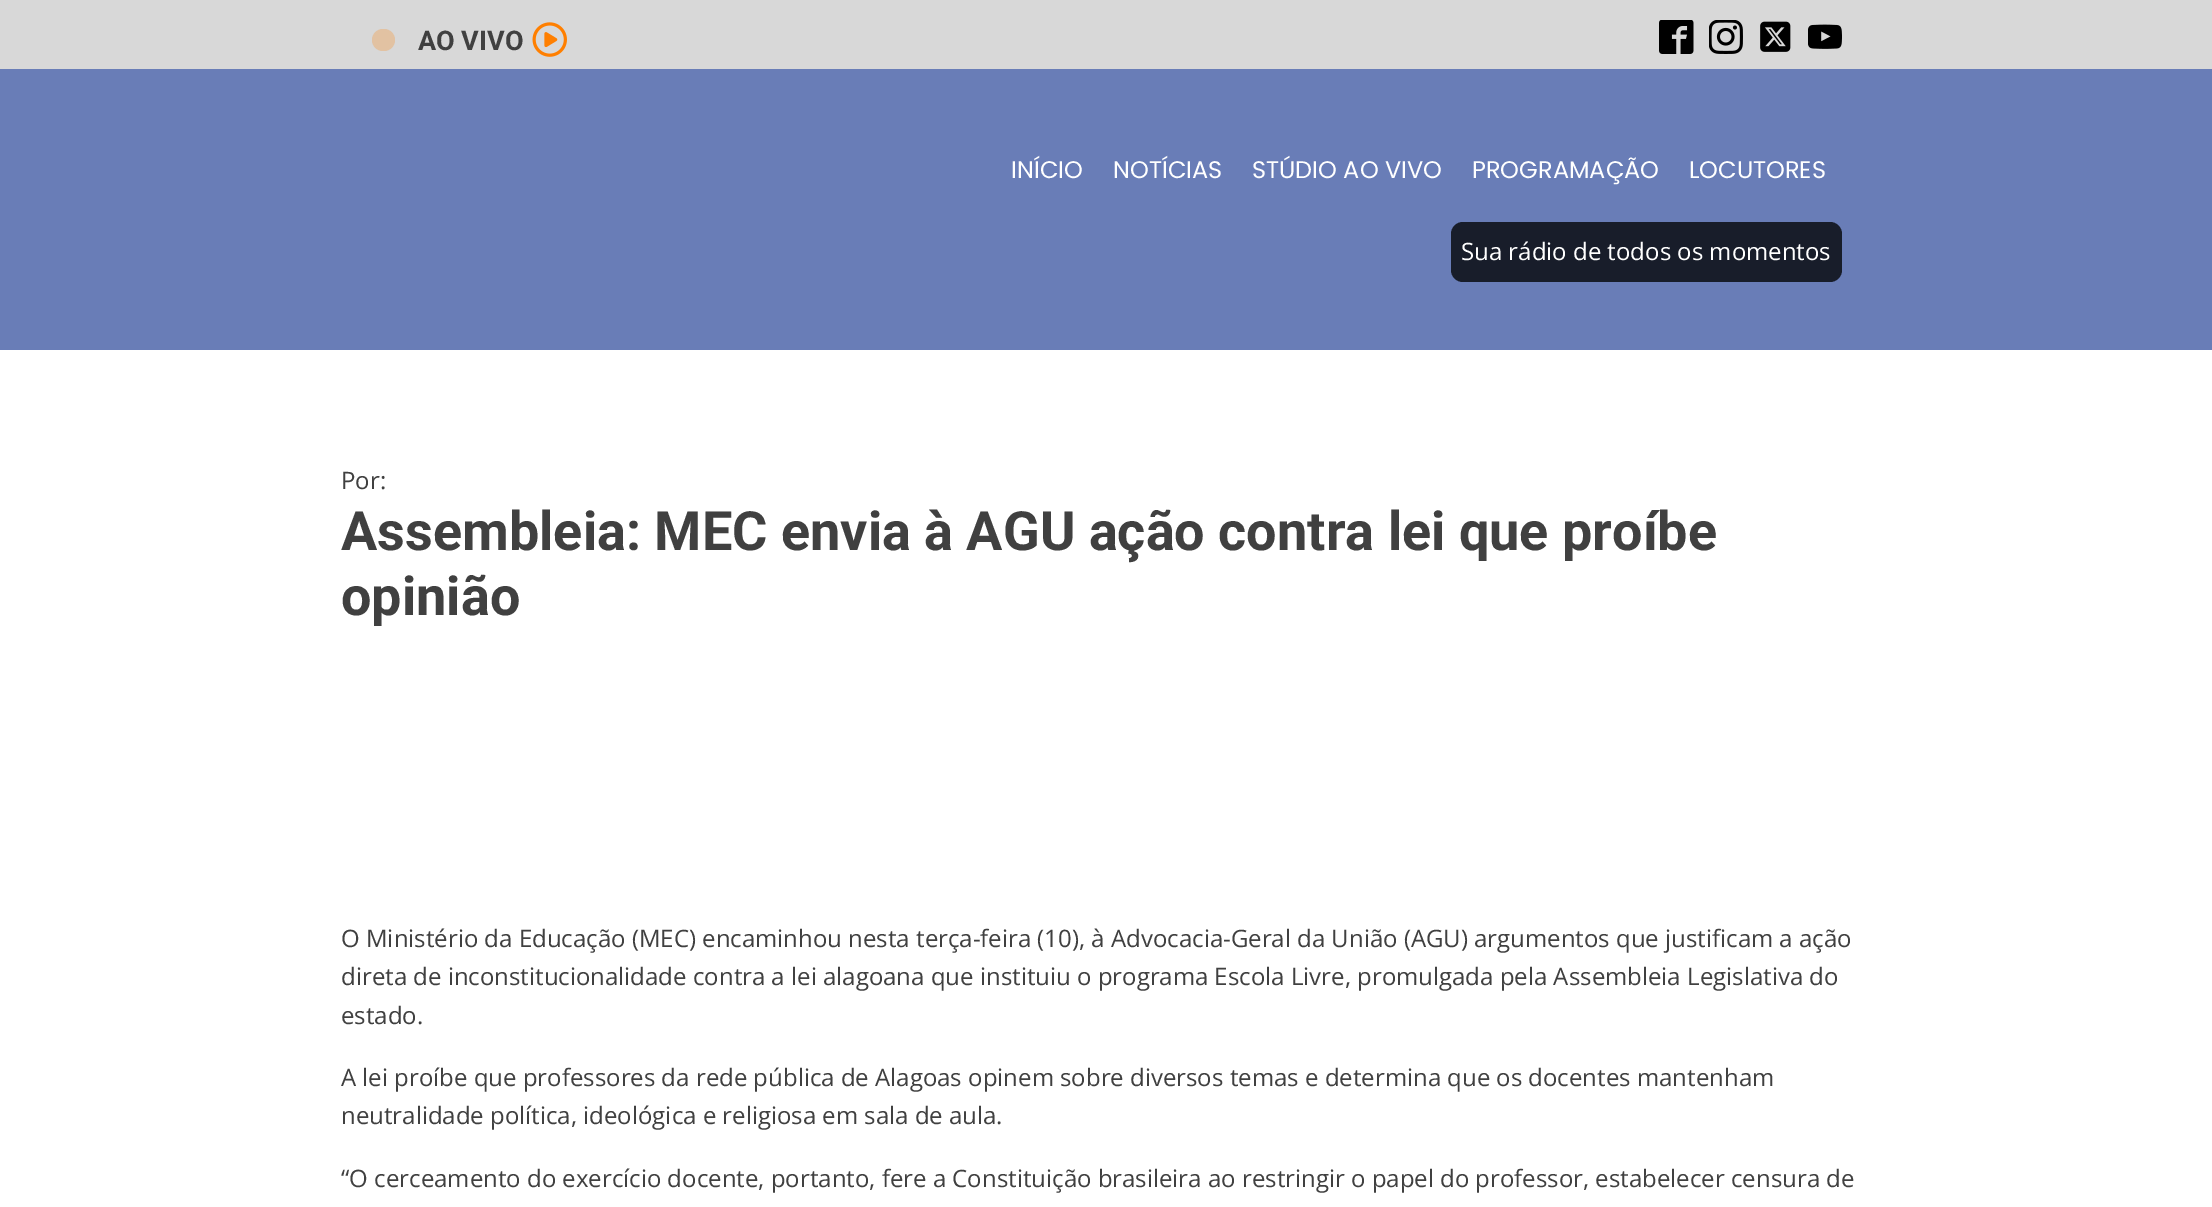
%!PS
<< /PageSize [2212 1207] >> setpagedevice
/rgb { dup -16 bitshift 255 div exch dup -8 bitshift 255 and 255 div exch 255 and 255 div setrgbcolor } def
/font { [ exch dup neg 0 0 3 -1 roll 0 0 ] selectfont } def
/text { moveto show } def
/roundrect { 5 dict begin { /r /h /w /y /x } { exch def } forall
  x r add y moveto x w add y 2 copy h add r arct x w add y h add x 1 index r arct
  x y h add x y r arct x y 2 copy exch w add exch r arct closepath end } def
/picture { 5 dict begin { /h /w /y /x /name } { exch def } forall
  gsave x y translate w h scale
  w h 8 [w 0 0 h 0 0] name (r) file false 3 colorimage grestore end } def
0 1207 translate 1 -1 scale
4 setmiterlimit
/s1 { /Roboto-Bold 27 font 16#404040 rgb } def
/s2 { /Poppins-Regular 24 font 16#FFFFFF rgb } def
/s3 { /OpenSans-Regular 24 font 16#FFFFFF rgb } def
/s4 { /OpenSans-Regular 24 font 16#404040 rgb } def
/s5 { /Roboto-Bold 54 font 16#404040 rgb } def
16#FFFFFF rgb
0 0 2212 1207 rectfill
16#D8D8D8 rgb
0 0 2212 69 rectfill
16#E2C2A2 rgb
372 29 23 22 11 roundrect fill
s1
(AO VIVO) 418 50 text
(pic1.raw) 532 22 35 35 picture
(pic2.raw) 1659 20 35 34 picture
(pic3.raw) 1709 20 34 34 picture
(pic4.raw) 1760 21 31 31 picture
(pic5.raw) 1808 24 34 25 picture
16#697DB7 rgb
0 69 2212 281 rectfill
s2
(INÍCIO) 1011 178 text
(NOTÍCIAS) 1113 178 text
(STÚDIO AO VIVO) 1252 178 text
(PROGRAMAÇÃO) 1472 178 text
(LOCUTORES) 1689 178 text
16#181D2A rgb
1451 222 391 60 12 roundrect fill
s3
(Sua rádio de todos os momentos) 1461 260 text
s4
(Por:) 341 489 text
s5
(Assembleia: MEC envia à AGU ação contra lei que proíbe) 341 550 text
(opinião) 341 615 text
s4
(O Ministério da Educação \(MEC\) encaminhou nesta terça-feira \(10\), à Advocacia-Geral da União \(AGU\) argumentos que justificam a ação) 341 947 text
(direta de inconstitucionalidade contra a lei alagoana que instituiu o programa Escola Livre, promulgada pela Assembleia Legislativa do) 341 985 text
(estado.) 341 1024 text
(A lei proíbe que professores da rede pública de Alagoas opinem sobre diversos temas e determina que os docentes mantenham) 341 1086 text
(neutralidade política, ideológica e religiosa em sala de aula.) 341 1124 text
(“O cerceamento do exercício docente, portanto, fere a Constituição brasileira ao restringir o papel do professor, estabelecer censura de) 341 1187 text
showpage
